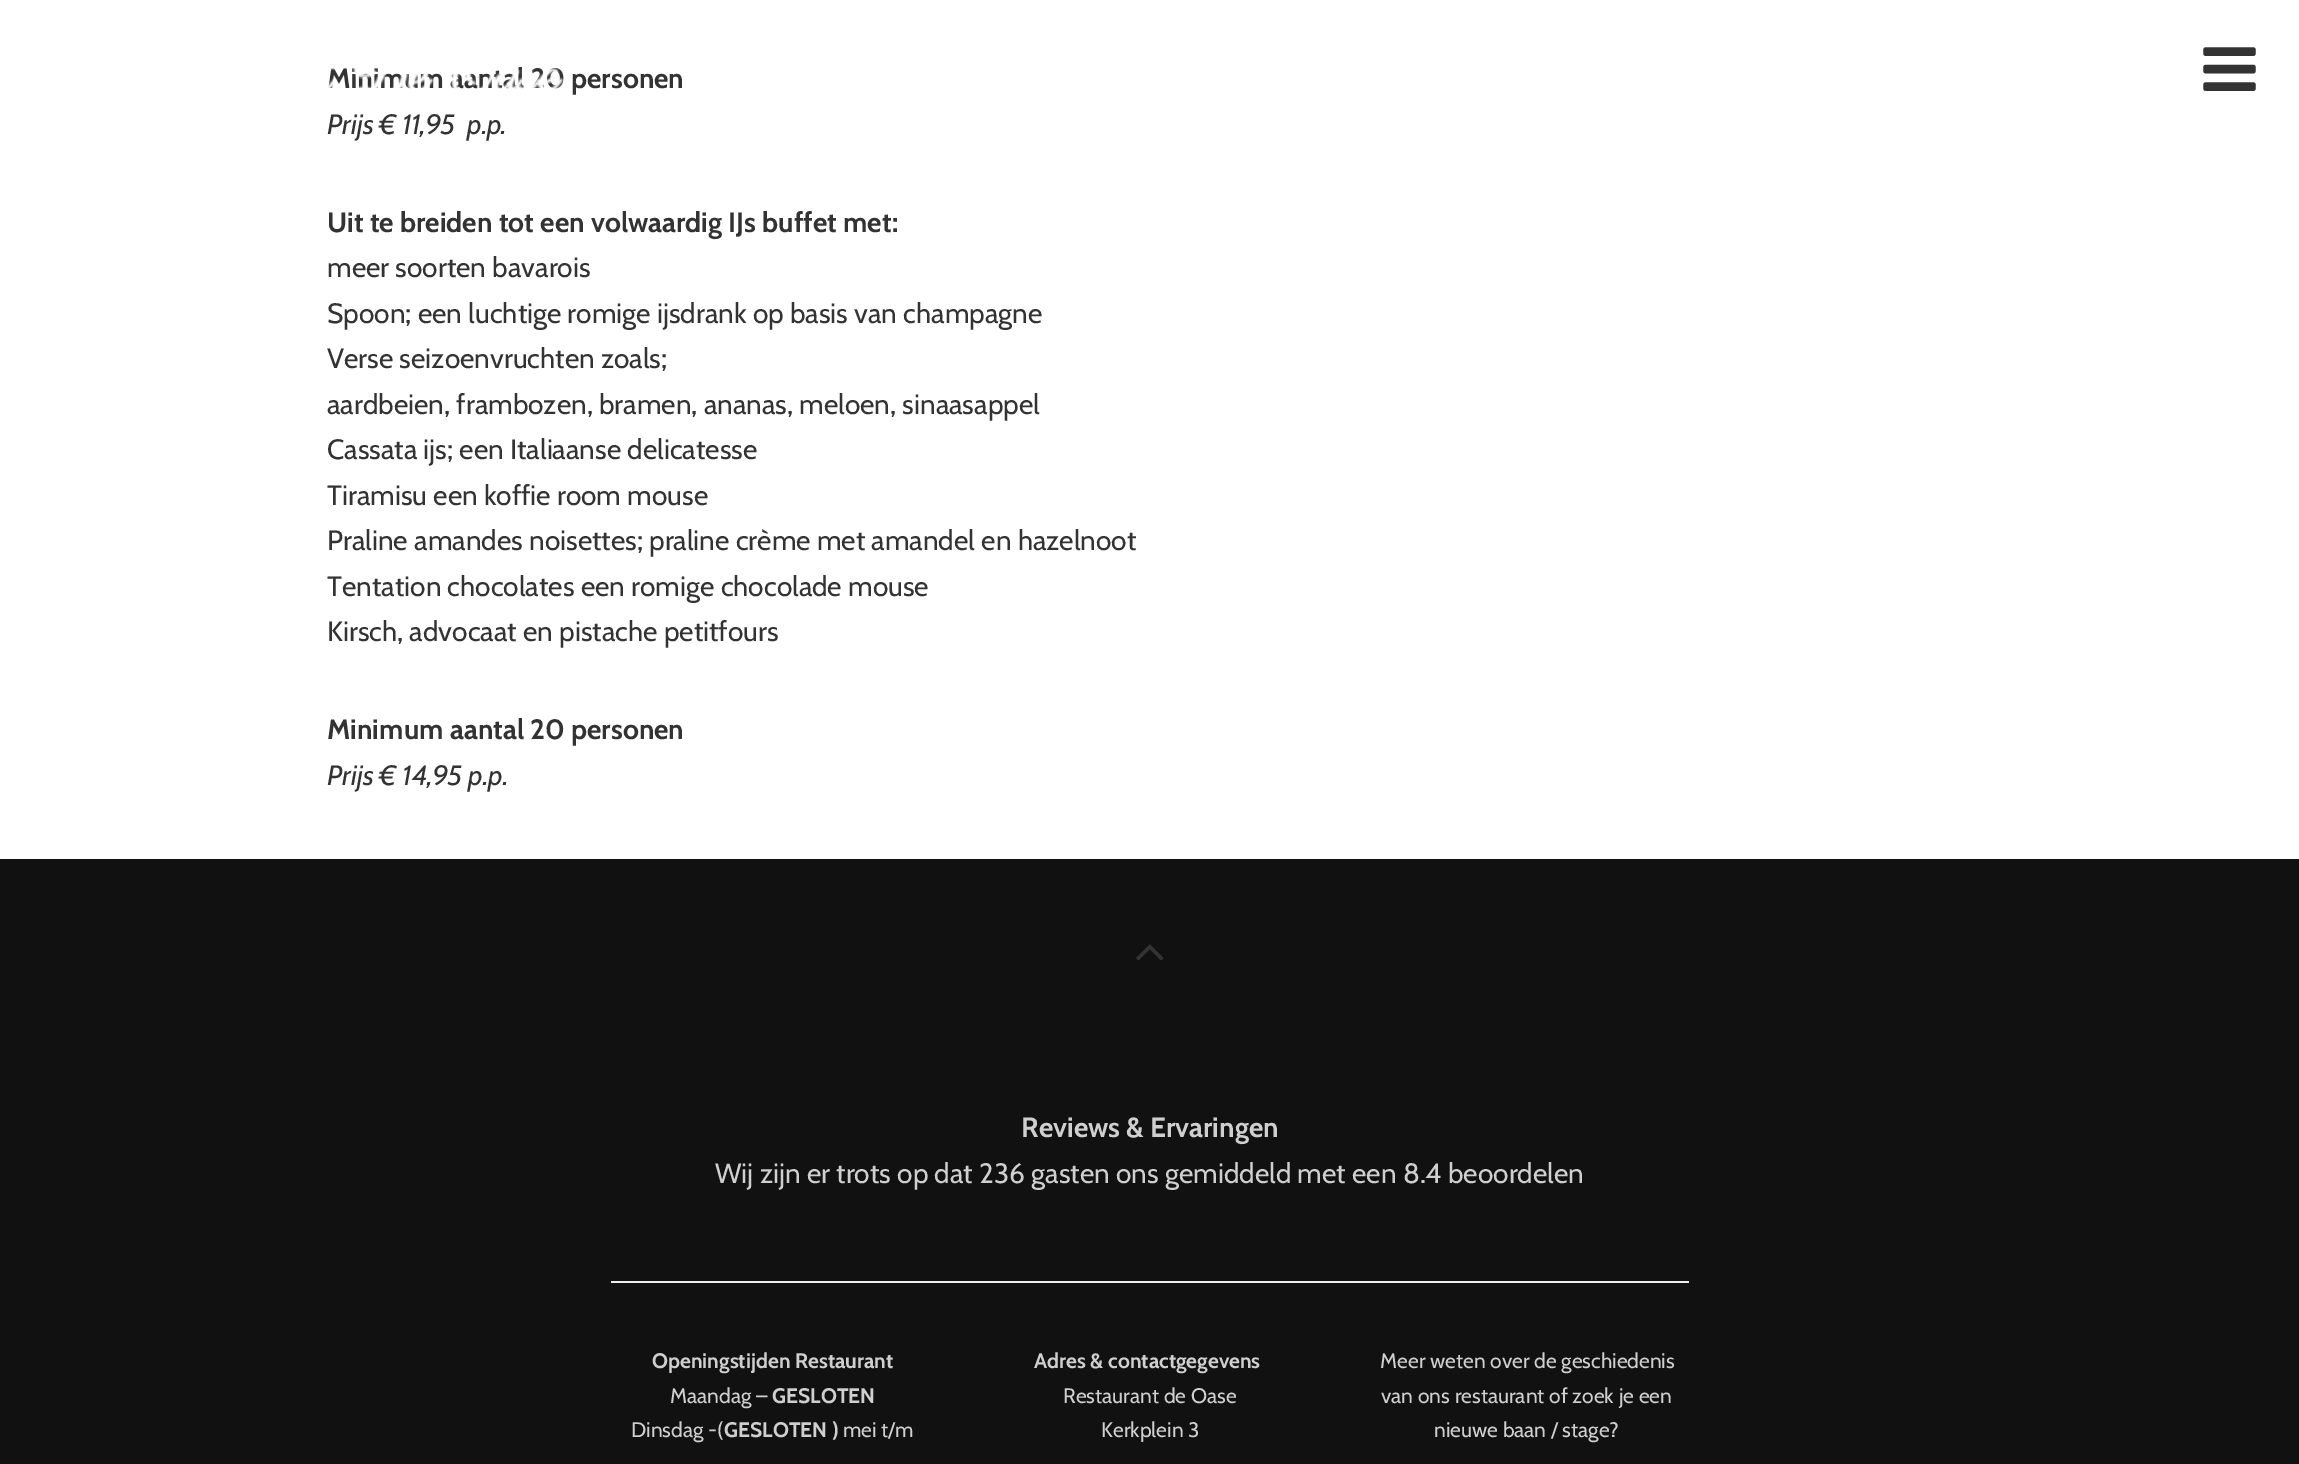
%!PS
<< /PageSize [2299 1464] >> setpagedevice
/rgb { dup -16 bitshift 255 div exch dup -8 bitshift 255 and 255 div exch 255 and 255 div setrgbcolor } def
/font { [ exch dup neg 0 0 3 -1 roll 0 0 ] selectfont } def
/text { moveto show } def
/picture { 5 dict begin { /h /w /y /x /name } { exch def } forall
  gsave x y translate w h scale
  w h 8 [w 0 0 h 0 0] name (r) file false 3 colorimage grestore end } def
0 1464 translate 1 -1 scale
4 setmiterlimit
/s1 { /Cabin-Bold 28 font 16#333333 rgb } def
/s2 { /Cabin-Italic 28 font 16#333333 rgb } def
/s3 { /Cabin-Regular 28 font 16#333333 rgb } def
/s4 { /Cabin-Bold 28 font 16#CFCFCF rgb } def
/s5 { /Cabin-Regular 28 font 16#CFCFCF rgb } def
/s6 { /Cabin-Bold 21 font 16#CFCFCF rgb } def
/s7 { /Cabin-Regular 21 font 16#CFCFCF rgb } def
16#FFFFFF rgb
0 0 2299 1464 rectfill
s1
(Minimum aantal 20 personen) 327 88 text
(pic1.raw) 328 68 236 21 picture
(pic2.raw) 2203 47 53 44 picture
s2
(Prijs € 11,95  p.p.) 327 134 text
s1
(Uit te breiden tot een volwaardig IJs buffet met:) 327 232 text
s3
(meer soorten bavarois) 327 277 text
(Spoon; een luchtige romige ijsdrank op basis van champagne) 327 323 text
(Verse seizoenvruchten zoals;) 327 368 text
(aardbeien, frambozen, bramen, ananas, meloen, sinaasappel) 327 414 text
(Cassata ijs; een Italiaanse delicatesse) 327 459 text
(Tiramisu een koffie room mouse) 327 505 text
(Praline amandes noisettes; praline crème met amandel en hazelnoot) 327 550 text
(Tentation chocolates een romige chocolade mouse) 327 596 text
(Kirsch, advocaat en pistache petitfours) 327 641 text
s1
(Minimum aantal 20 personen) 327 739 text
s2
(Prijs € 14,95 p.p.) 327 785 text
16#111111 rgb
0 859 2299 605 rectfill
(pic3.raw) 1136 944 28 17 picture
s4
(Reviews & Ervaringen) 1021 1137 text
s5
(Wij zijn er trots op dat 236 gasten ons gemiddeld met een 8.4 beoordelen) 715 1183 text
16#EEEEEE rgb
611 1281 1078 2 rectfill
s6
(Openingstijden Restaurant) 652 1368 text
s7
(Maandag –) 670 1403 text
s6
(GESLOTEN) 772 1403 text
s7
(Dinsdag -\() 631 1437 text
s6
(GESLOTEN \)) 724 1437 text
s7
(mei t/m) 843 1437 text
s6
(Adres & contactgegevens) 1034 1368 text
s7
(Restaurant de Oase) 1063 1403 text
(Kerkplein 3) 1101 1437 text
(Meer weten over de geschiedenis) 1380 1368 text
(van ons restaurant of zoek je een) 1381 1403 text
(nieuwe baan / stage?) 1434 1437 text
showpage
